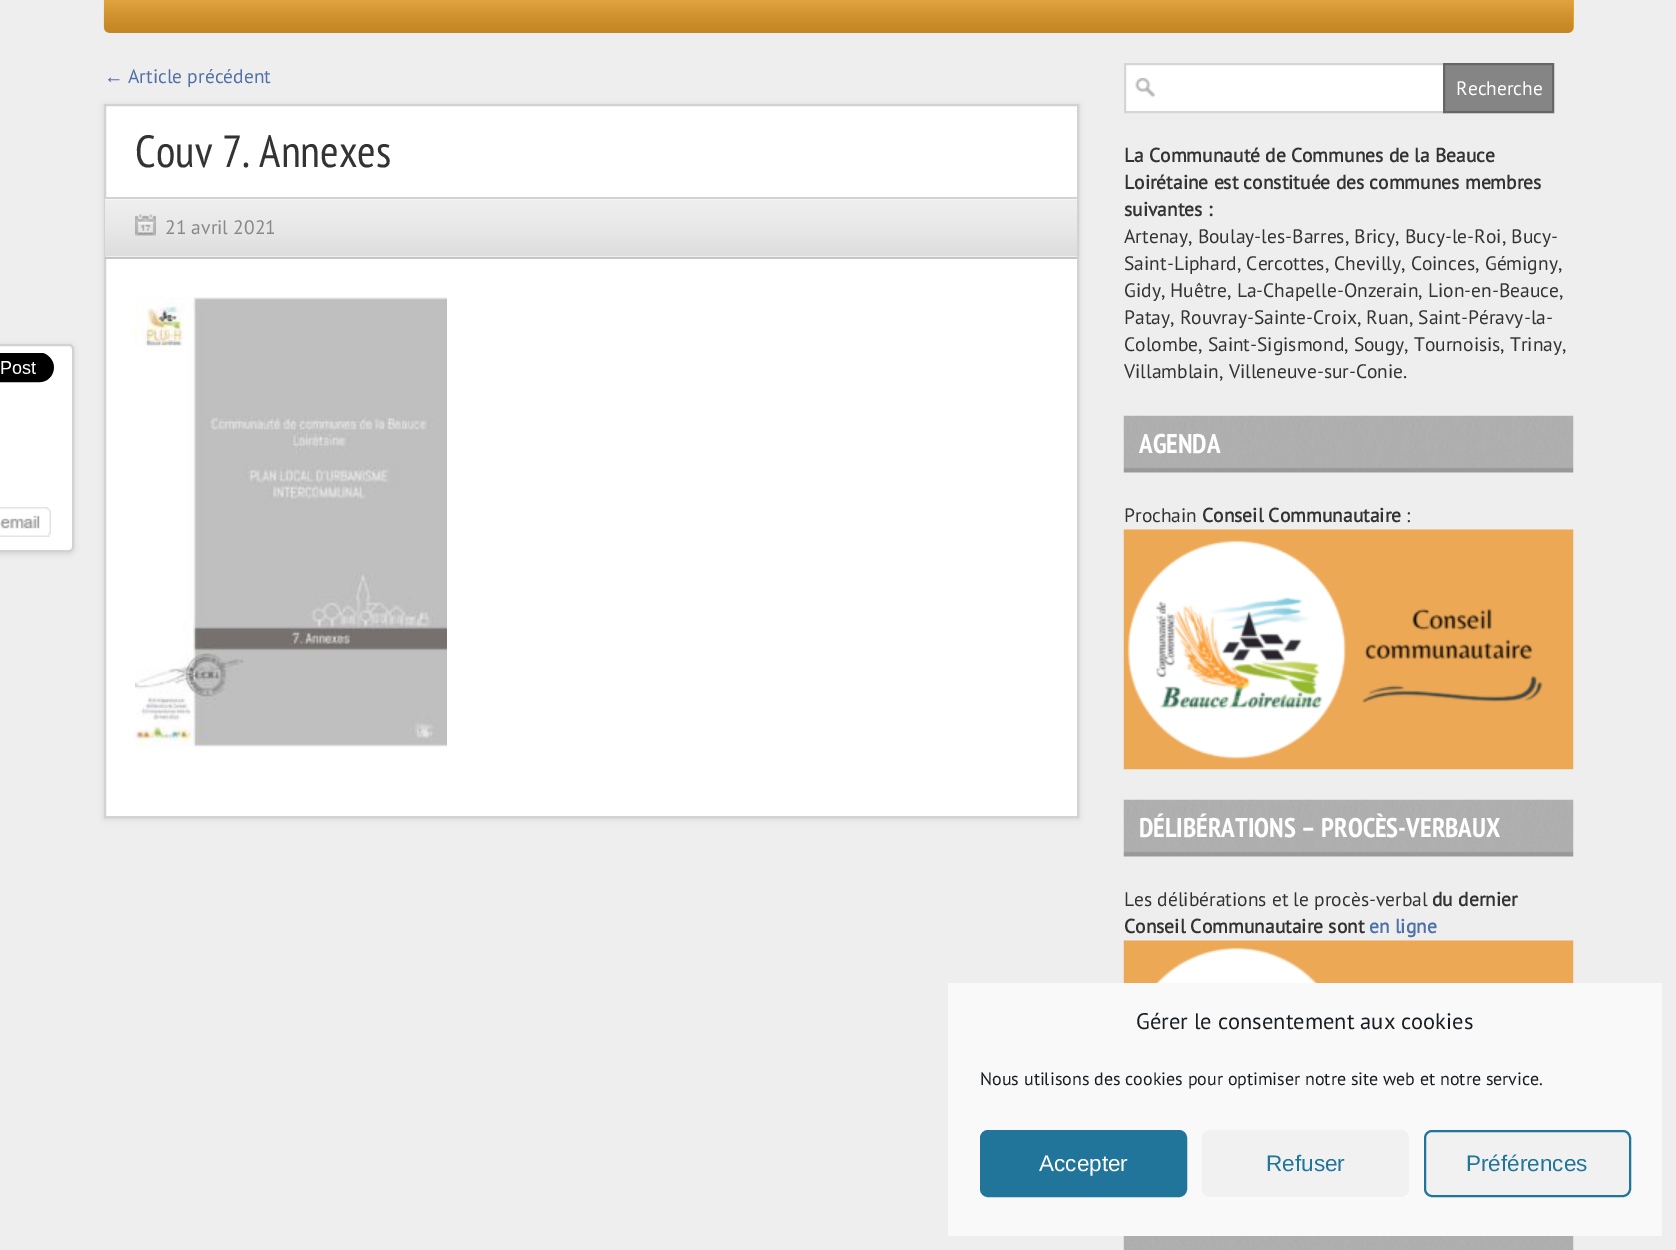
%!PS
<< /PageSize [1676 1250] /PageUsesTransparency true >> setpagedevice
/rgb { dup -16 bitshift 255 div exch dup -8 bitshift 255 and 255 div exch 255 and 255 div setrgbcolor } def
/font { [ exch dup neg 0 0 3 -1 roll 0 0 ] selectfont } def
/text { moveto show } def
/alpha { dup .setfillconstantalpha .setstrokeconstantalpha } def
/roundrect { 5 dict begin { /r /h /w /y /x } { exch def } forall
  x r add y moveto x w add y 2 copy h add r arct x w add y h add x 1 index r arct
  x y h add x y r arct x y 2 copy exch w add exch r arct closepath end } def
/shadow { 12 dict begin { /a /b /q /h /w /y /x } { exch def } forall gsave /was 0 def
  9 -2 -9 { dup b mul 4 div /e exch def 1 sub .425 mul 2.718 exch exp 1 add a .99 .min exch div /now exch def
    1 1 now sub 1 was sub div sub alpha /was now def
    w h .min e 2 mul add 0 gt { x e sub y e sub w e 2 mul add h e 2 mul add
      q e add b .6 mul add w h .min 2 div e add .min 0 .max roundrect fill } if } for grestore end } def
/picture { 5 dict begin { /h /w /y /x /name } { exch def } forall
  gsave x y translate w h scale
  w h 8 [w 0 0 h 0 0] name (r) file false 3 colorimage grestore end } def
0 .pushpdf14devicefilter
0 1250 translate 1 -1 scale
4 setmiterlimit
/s1 { /LiberationSerif-Regular 19.5 font 16#4F71A8 rgb } def
/s2 { /PTSans-Regular 19.5 font 16#4F71A8 rgb } def
/s3 { /PTSansNarrow-Regular 45 font 16#333333 rgb } def
/s4 { /PTSans-Regular 19.5 font 16#888888 rgb } def
/s5 { /PTSans-Regular 19.5 font 16#FFFFFF rgb } def
/s6 { /PTSans-Bold 19.5 font 16#333333 rgb } def
/s7 { /PTSans-Regular 19.5 font 16#333333 rgb } def
/s8 { /PTSansNarrow-Bold 27 font 16#FFFFFF rgb } def
/s9 { /PTSans-Bold 19.5 font 16#4F71A8 rgb } def
/s10 { /PTSans-Regular 22.5 font 16#191E23 rgb } def
/s11 { /PTSans-Regular 18 font 16#191E23 rgb } def
/s12 { /LiberationSans-Regular 22.5 font 16#FFFFFF rgb } def
/s13 { /LiberationSans-Regular 22.5 font 16#21759B rgb } def
16#EEEEEE rgb
0 0 1676 1250 rectfill
16#F5A82C rgb
104 -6 1470 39 6 roundrect fill
(pic1.raw) 103 0 1471 33 picture
s1
(←) 104 83 text
s2
(Article précédent) 128 83 text
16#000000 rgb
104 105 975 714 0 3 0.1 shadow
16#FFFFFF rgb
105 105 moveto 1078 105 lineto 1078 817 lineto 105 817 lineto closepath gsave fill grestore
16#D2D2D2 rgb
2 setlinewidth
stroke
s3
(Couv 7. Annexes) 135 167 text
(pic2.raw) 105 199 972 58 picture
16#D2D2D2 rgb
105 197 972 2 rectfill
16#C5C5C5 rgb
105 257 972 2 rectfill
(pic3.raw) 135 214 21 22 picture
s4
(21 avril 2021) 165 234 text
16#000000 rgb
-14 345 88 209 5 3 0.1 shadow
16#FFFFFF rgb
-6 345 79 206 4 roundrect gsave fill grestore
16#D2D2D2 rgb
stroke
(pic4.raw) 0 353 54 30 picture
(pic5.raw) 0 507 51 30 picture
(pic6.raw) 135 297 312 450 picture
16#FFFFFF rgb
1126 65 317 46 rectfill
(pic7.raw) 1135 78 20 20 picture
16#D5D5D5 rgb
1125 64 319 48 rectstroke
16#858585 rgb
1444 64 moveto 1553 64 lineto 1553 112 lineto 1444 112 lineto closepath gsave fill grestore
16#666666 rgb
stroke
s5
(Recherche) 1456 95 text
s6
(La Communauté de Communes de la Beauce) 1124 162 text
(Loirétaine est constituée des communes membres) 1124 189 text
(suivantes :) 1124 216 text
s7
(Artenay, Boulay-les-Barres, Bricy, Bucy-le-Roi, Bucy-) 1124 243 text
(Saint-Liphard, Cercottes, Chevilly, Coinces, Gémigny,) 1124 270 text
(Gidy, Huêtre, La-Chapelle-Onzerain, Lion-en-Beauce,) 1124 297 text
(Patay, Rouvray-Sainte-Croix, Ruan, Saint-Péravy-la-) 1124 324 text
(Colombe, Saint-Sigismond, Sougy, Tournoisis, Trinay,) 1124 351 text
(Villamblain, Villeneuve-sur-Conie.) 1124 378 text
(pic8.raw) 1123 415 451 58 picture
s8
(AGENDA) 1139 453 text
s7
(Prochain) 1124 522 text
s6
(Conseil Communautaire) 1202 522 text
s7
(:) 1406 522 text
(pic9.raw) 1123 529 451 241 picture
(pic10.raw) 1123 799 451 58 picture
s8
(DÉLIBÉRATIONS – PROCÈS-VERBAUX) 1139 837 text
s7
(Les délibérations et le procès-verbal) 1124 906 text
s6
(du dernier) 1432 906 text
(Conseil Communautaire sont) 1124 933 text
s9
(en ligne) 1369 933 text
(pic11.raw) 1123 940 451 43 picture
(pic12.raw) 1123 1236 451 14 picture
16#F9F9F9 rgb
948 983 714 253 rectfill
s10
(Gérer le consentement aux cookies) 1136 1029 text
s11
(Nous utilisons des cookies pour optimiser notre site web et notre service.) 980 1085 text
16#21759B rgb
981 1131 205 65 7 roundrect gsave fill grestore
stroke
s12
(Accepter) 1039 1171 text
16#F1F1F1 rgb
1202 1130 207 67 8 roundrect fill
s13
(Refuser) 1266 1171 text
16#F1F1F1 rgb
1425 1131 205 65 7 roundrect gsave fill grestore
16#21759B rgb
stroke
(Préférences) 1466 1171 text
.poppdf14devicefilter showpage
